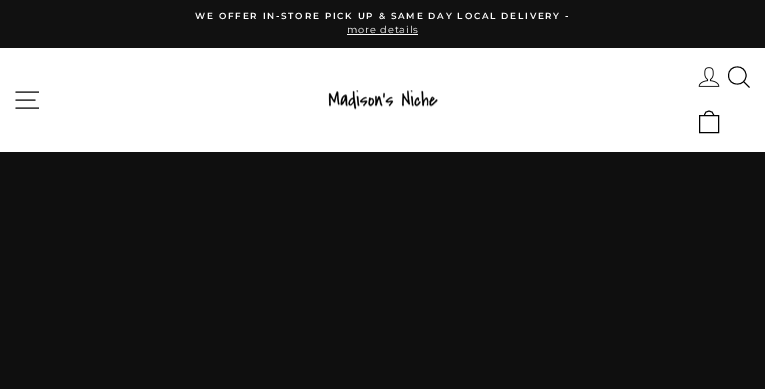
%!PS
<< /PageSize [765 389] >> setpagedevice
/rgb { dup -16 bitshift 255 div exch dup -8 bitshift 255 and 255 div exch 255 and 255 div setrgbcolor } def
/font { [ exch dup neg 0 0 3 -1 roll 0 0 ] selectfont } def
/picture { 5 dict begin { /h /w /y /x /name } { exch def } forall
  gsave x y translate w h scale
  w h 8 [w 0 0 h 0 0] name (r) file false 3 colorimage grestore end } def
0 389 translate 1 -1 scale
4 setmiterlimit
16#FFFFFF rgb
0 0 765 389 rectfill
16#111111 rgb
0 0 765 48 rectfill
/Montserrat-SemiBold 8.8 font
16#FFFFFF rgb
195 19 moveto 1.75 0 (WE OFFER IN-STORE PICK UP & SAME DAY LOCAL DELIVERY -) ashow
/Montserrat-Regular 9.75 font
347 33 moveto 0.9 0 (more details) ashow
347 34 71 1 rectfill
16#000000 rgb
0.9 setlinewidth
15.5 92 moveto 39 92 lineto 15.5 100 moveto 35.5 100 lineto 15.5 108 moveto 39 108 lineto stroke
(pic1.raw) 328 90 110 20 picture
(pic2.raw) 698 67 22 20 picture
746 75.5 moveto 746 87 728.5 87 728.5 75.5 curveto 728.5 64 746 64 746 75.5 curveto closepath 749.5 87.5 moveto 743.5 81.5 lineto stroke
699.5 115.5 moveto 718.5 115.5 lineto 718.5 132.5 lineto 699.5 132.5 lineto closepath 704.5 115.5 moveto 704.5 109.5 713.5 109.5 713.5 115.5 curveto stroke
16#0F0F0F rgb
0 152 765 237 rectfill
showpage
